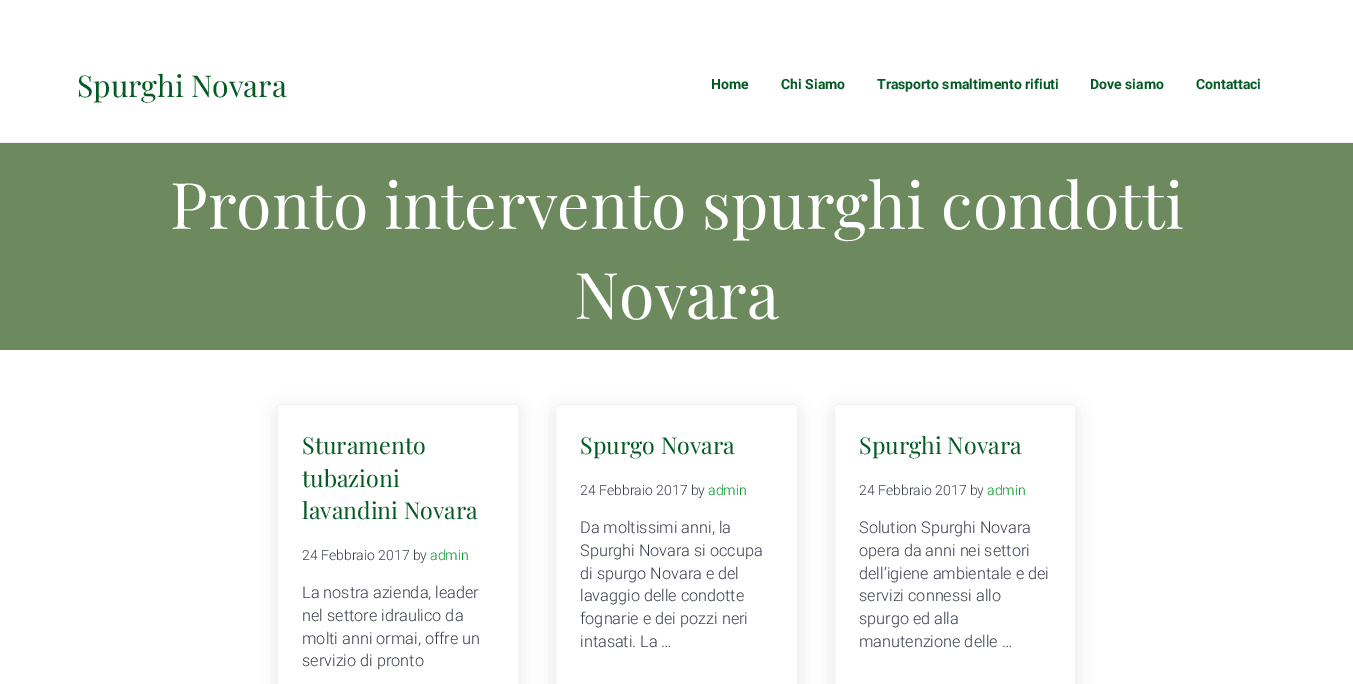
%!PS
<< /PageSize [1353 684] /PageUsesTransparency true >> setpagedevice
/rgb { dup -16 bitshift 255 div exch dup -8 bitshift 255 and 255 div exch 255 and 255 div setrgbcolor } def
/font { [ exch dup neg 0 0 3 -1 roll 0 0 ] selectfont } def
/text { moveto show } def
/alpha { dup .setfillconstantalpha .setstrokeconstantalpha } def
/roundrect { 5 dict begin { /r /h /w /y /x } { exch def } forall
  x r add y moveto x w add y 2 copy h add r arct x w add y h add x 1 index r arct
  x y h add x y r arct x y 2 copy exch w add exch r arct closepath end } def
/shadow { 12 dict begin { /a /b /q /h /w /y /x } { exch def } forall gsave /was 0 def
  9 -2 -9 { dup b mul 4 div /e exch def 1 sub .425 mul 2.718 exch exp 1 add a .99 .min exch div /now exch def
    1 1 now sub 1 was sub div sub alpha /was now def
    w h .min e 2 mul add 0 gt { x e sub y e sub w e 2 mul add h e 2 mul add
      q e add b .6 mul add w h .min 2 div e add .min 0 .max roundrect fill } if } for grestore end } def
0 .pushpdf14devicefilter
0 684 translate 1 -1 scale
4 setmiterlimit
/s1 { /PlayfairDisplay-Regular 30 font 16#035A23 rgb } def
/s2 { /Roboto-Bold 14 font 16#035A23 rgb } def
/s3 { /PlayfairDisplay-Regular 64.4 font 16#FFFFFF rgb } def
/s4 { /PlayfairDisplay-Regular 23.25 font 16#035A23 rgb } def
/s5 { /Roboto-Light 14 font 16#393E4B rgb } def
/s6 { /Roboto-Light 14 font 16#019729 rgb } def
/s7 { /Roboto-Light 16.25 font 16#393E4B rgb } def
16#FFFFFF rgb
0 0 1353 684 rectfill
16#F3F3F4 rgb
0 142 1353 1 rectfill
s1
(Spurghi Novara) 77 97 text
s2
(Home) 711 89 text
(Chi Siamo) 781 89 text
(Trasporto smaltimento rifiuti) 877 89 text
(Dove siamo) 1090 89 text
(Contattaci) 1196 89 text
16#6D8A5F rgb
0 143 1353 207 rectfill
s3
(Pronto intervento spurghi condotti) 170 229 text
(Novara) 574 319 text
gsave
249 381 moveto 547 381 lineto 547 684 lineto 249 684 lineto closepath 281 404 moveto 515 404 lineto 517 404 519 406 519 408 curveto 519 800 lineto 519 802 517 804 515 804 curveto 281 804 lineto 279 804 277 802 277 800 curveto 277 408 lineto 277 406 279 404 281 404 curveto closepath eoclip newpath
16#0A141E rgb
277 409 242 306 4 9 0.1 shadow
grestore
16#F3F3F4 rgb
277.5 404.5 241 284 3.5 roundrect stroke
s4
(Sturamento) 302 454 text
(tubazioni) 302 487 text
(lavandini Novara) 302 519 text
s5
(24 Febbraio 2017 by) 302 560 text
s6
(admin) 430 560 text
s7
(La nostra azienda, leader) 302 598 text
(nel settore idraulico da) 302 621 text
(molti anni ormai, offre un) 302 644 text
(servizio di pronto) 302 666 text
gsave
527 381 moveto 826 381 lineto 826 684 lineto 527 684 lineto closepath 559 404 moveto 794 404 lineto 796 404 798 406 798 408 curveto 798 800 lineto 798 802 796 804 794 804 curveto 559 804 lineto 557 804 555 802 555 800 curveto 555 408 lineto 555 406 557 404 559 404 curveto closepath eoclip newpath
16#0A141E rgb
555 409 243 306 4 9 0.1 shadow
grestore
16#F3F3F4 rgb
555.5 404.5 242 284 3.5 roundrect stroke
s4
(Spurgo Novara) 580 454 text
s5
(24 Febbraio 2017 by) 580 495 text
s6
(admin) 708 495 text
s7
(Da moltissimi anni, la) 580 533 text
(Spurghi Novara si occupa) 580 556 text
(di spurgo Novara e del) 580 579 text
(lavaggio delle condotte) 580 601 text
(fognarie e dei pozzi neri) 580 624 text
(intasati. La …) 580 647 text
gsave
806 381 moveto 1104 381 lineto 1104 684 lineto 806 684 lineto closepath 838 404 moveto 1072 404 lineto 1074 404 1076 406 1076 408 curveto 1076 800 lineto 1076 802 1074 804 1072 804 curveto 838 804 lineto 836 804 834 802 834 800 curveto 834 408 lineto 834 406 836 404 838 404 curveto closepath eoclip newpath
16#0A141E rgb
834 409 242 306 4 9 0.1 shadow
grestore
16#F3F3F4 rgb
834.5 404.5 241 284 3.5 roundrect stroke
s4
(Spurghi Novara) 859 454 text
s5
(24 Febbraio 2017 by) 859 495 text
s6
(admin) 987 495 text
s7
(Solution Spurghi Novara) 859 533 text
(opera da anni nei settori) 859 556 text
(dell’igiene ambientale e dei) 859 579 text
(servizi connessi allo) 859 601 text
(spurgo ed alla) 859 624 text
(manutenzione delle …) 859 647 text
.poppdf14devicefilter showpage
